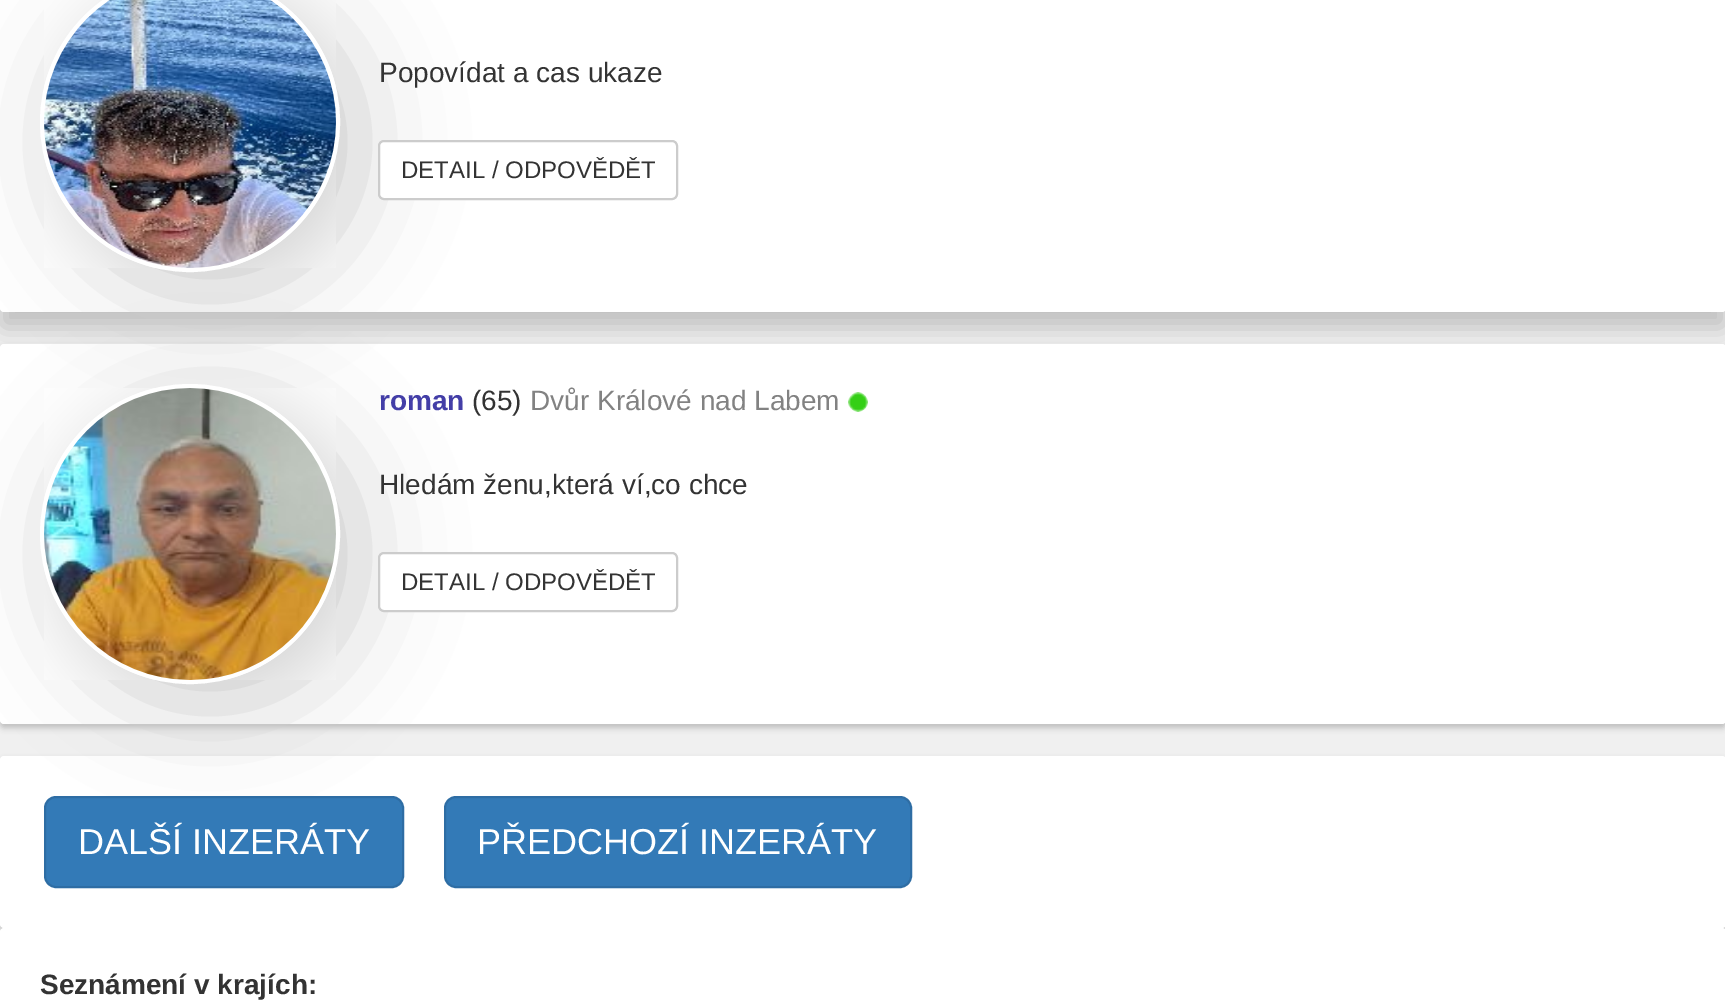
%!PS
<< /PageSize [1725 1003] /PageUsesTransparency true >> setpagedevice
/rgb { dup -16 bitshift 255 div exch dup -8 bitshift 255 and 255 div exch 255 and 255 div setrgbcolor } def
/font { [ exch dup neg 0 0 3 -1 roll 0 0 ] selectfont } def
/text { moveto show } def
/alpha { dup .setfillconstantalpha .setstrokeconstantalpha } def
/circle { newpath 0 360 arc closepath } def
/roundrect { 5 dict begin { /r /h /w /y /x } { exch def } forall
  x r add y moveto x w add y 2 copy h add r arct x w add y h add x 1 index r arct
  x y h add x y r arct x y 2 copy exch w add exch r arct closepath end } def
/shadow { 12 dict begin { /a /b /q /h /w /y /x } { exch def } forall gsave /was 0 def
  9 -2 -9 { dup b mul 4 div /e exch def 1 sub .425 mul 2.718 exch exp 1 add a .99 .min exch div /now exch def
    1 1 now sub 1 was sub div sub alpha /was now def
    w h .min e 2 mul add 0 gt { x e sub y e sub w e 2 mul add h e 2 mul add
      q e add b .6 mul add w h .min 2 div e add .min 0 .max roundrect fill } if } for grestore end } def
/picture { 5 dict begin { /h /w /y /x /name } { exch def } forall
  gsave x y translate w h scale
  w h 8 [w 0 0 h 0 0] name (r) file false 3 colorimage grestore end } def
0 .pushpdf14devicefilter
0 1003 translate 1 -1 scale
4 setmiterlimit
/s1 { /LiberationSans-Regular 28 font 16#333333 rgb } def
/s2 { /LiberationSans-Regular 24 font 16#333333 rgb } def
/s3 { /LiberationSans-Bold 28 font 16#433EA7 rgb } def
/s4 { /LiberationSans-Regular 28 font 16#828282 rgb } def
/s5 { /LiberationSans-Regular 36 font 16#FFFFFF rgb } def
/s6 { /LiberationSans-Bold 28 font 16#333333 rgb } def
16#F0F0F0 rgb
0 0 1725 1003 rectfill
16#000000 rgb
0 -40 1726 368 4 12 0.2 shadow
16#FFFFFF rgb
0 -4 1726 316 4 roundrect fill
16#000000 rgb
0 348 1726 380 4 3 0.2 shadow
16#FFFFFF rgb
0 344 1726 380 4 roundrect fill
16#CCCCCC rgb
60 -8 300 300 150 50 1 shadow
16#FFFFFF rgb
4 setlinewidth
190 122 148 circle stroke
(pic1.raw) 44 0 292 268 picture
s1
(Popovídat a cas ukaze) 379 82 text
16#FFFFFF rgb
379 141 298 58 5 roundrect gsave fill grestore
16#CCCCCC rgb
2 setlinewidth
stroke
s2
(DETAIL / ODPOVĚDĚT) 401 178 text
16#000000 rgb
0 760 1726 172 4 3 0.2 shadow
16#FFFFFF rgb
0 756 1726 172 4 roundrect fill
16#CCCCCC rgb
60 404 300 300 150 50 1 shadow
16#FFFFFF rgb
4 setlinewidth
190 534 148 circle stroke
(pic2.raw) 44 388 292 292 picture
s3
(roman) 379 410 text
s1
(\(65\)) 472 410 text
s4
(Dvůr Králové nad Labem) 530 410 text
(pic3.raw) 848 392 20 20 picture
s1
(Hledám ženu,která ví,co chce) 379 494 text
16#FFFFFF rgb
379 553 298 58 5 roundrect gsave fill grestore
16#CCCCCC rgb
2 setlinewidth
stroke
s2
(DETAIL / ODPOVĚDĚT) 401 590 text
16#337AB7 rgb
45 797 358 90 11 roundrect gsave fill grestore
16#2E6DA4 rgb
stroke
s5
(DALŠÍ INZERÁTY) 78 854 text
16#337AB7 rgb
445 797 466 90 11 roundrect gsave fill grestore
16#2E6DA4 rgb
stroke
s5
(PŘEDCHOZÍ INZERÁTY) 477 854 text
0 928 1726 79 4 roundrect fill
s6
(Seznámení v krajích:) 40 994 text
.poppdf14devicefilter showpage
